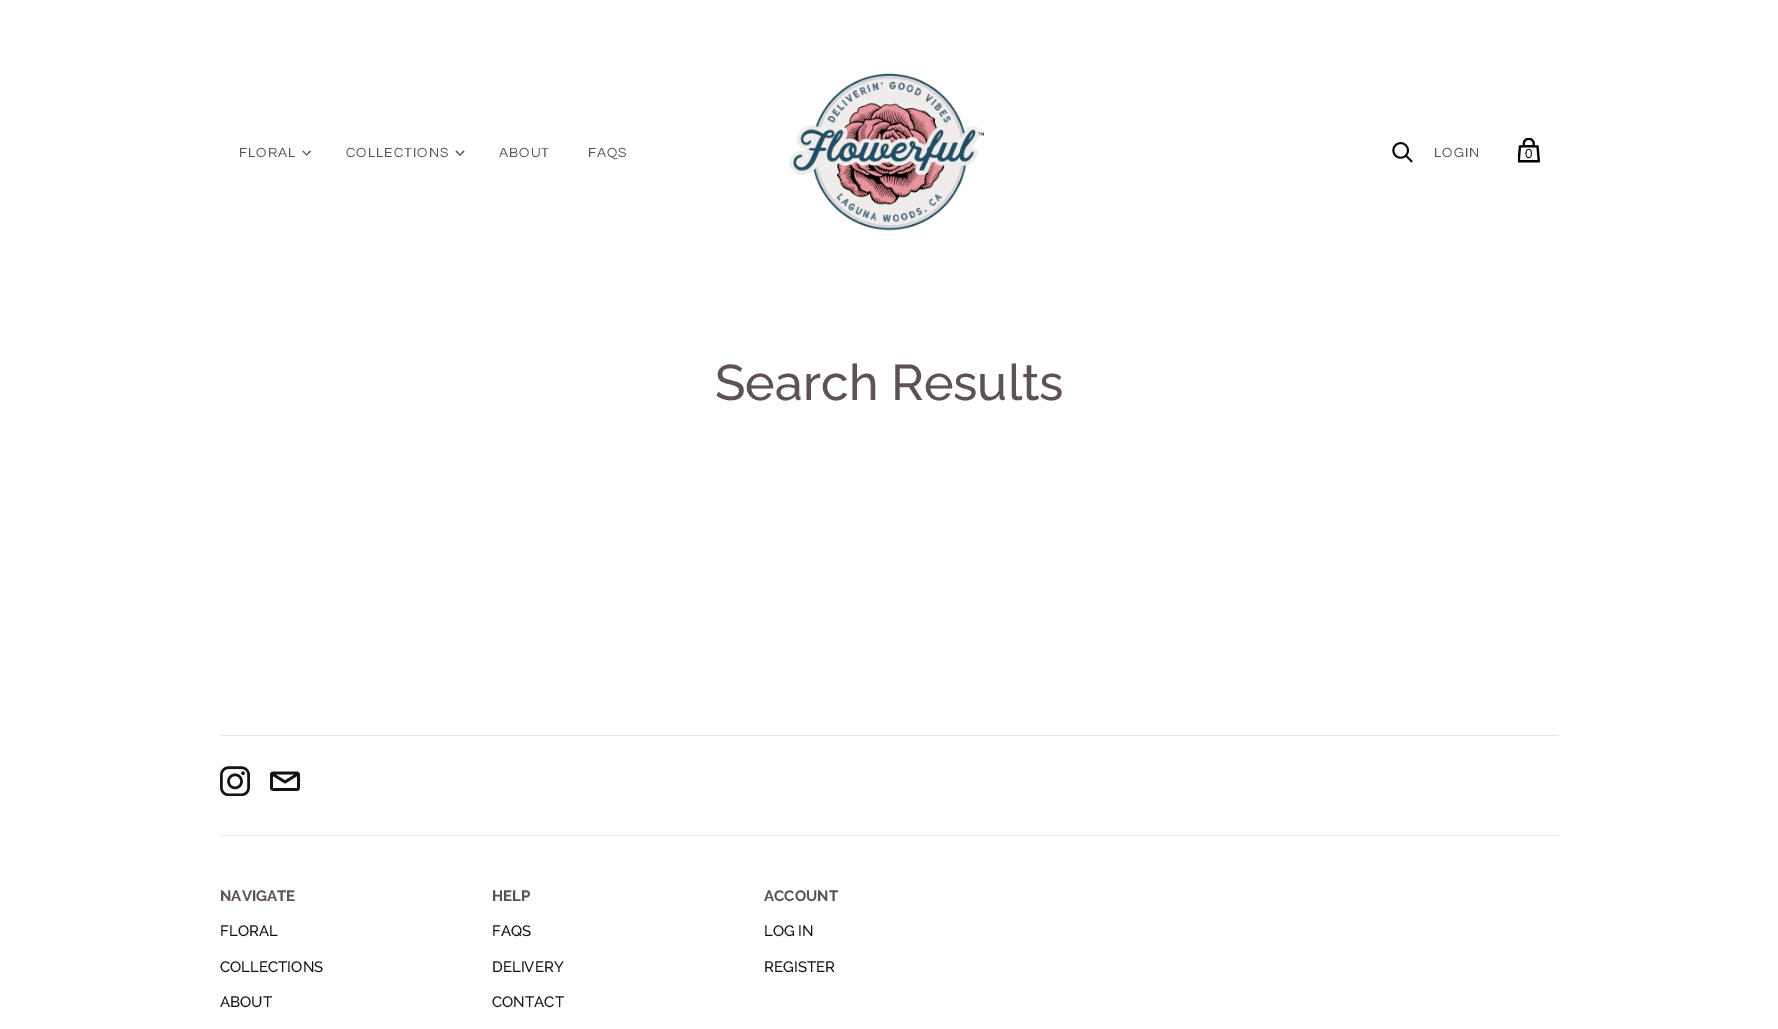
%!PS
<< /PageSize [1778 1029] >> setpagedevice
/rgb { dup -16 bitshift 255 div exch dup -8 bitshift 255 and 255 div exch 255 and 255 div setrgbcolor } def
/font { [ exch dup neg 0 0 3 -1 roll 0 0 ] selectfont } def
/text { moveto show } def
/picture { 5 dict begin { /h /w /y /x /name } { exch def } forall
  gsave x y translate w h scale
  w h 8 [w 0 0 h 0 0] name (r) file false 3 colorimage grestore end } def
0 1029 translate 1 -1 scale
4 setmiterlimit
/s1 { /Questrial-Regular 13.75 font 16#000000 rgb } def
/s2 { /Raleway-Medium 50 font 16#5E5151 rgb } def
/s3 { /Raleway-Bold 15 font 16#5E5151 rgb } def
/s4 { /Raleway-Medium 15 font 16#141212 rgb } def
16#FFFFFF rgb
0 0 1778 1029 rectfill
/Questrial-Regular 13.75 font
16#5E5151 rgb
239 157 moveto 1 0 (FLORAL) ashow
306 155 moveto 310 150.5 lineto 311 151.5 lineto 306.5 155.5 lineto closepath fill
302.5 151.5 moveto 303 150.5 lineto 307.5 155 lineto 306.5 155.5 lineto closepath fill
346 157 moveto 1 0 (COLLECTIONS) ashow
459 155 moveto 463.5 150.5 lineto 464.5 151.5 lineto 460 155.5 lineto closepath fill
455.5 151.5 moveto 456.5 150.5 lineto 460.5 155 lineto 460 155.5 lineto closepath fill
499 157 moveto 1 0 (ABOUT) ashow
588 157 moveto 1 0 (FAQS) ashow
(pic1.raw) 789 73 196 158 picture
(pic2.raw) 1392 142 21 21 picture
1434 157 moveto 1 0 (LOGIN) ashow
(pic3.raw) 1518 138 22 25 picture
s1
(0) 1525 158 text
s2
(Search Results) 715 400 text
16#E6E6E6 rgb
220 735 1339 1 rectfill
(pic4.raw) 220 766 30 30 picture
(pic5.raw) 270 771 30 20 picture
220 835 1339 1 rectfill
s3
(NAVIGATE) 220 901 text
s4
(FLORAL) 220 936 text
(COLLECTIONS) 220 972 text
(ABOUT) 220 1007 text
s3
(HELP) 492 901 text
s4
(FAQS) 492 936 text
(DELIVERY) 492 972 text
(CONTACT) 492 1007 text
s3
(ACCOUNT) 764 901 text
s4
(LOG IN) 764 936 text
(REGISTER) 764 972 text
showpage
